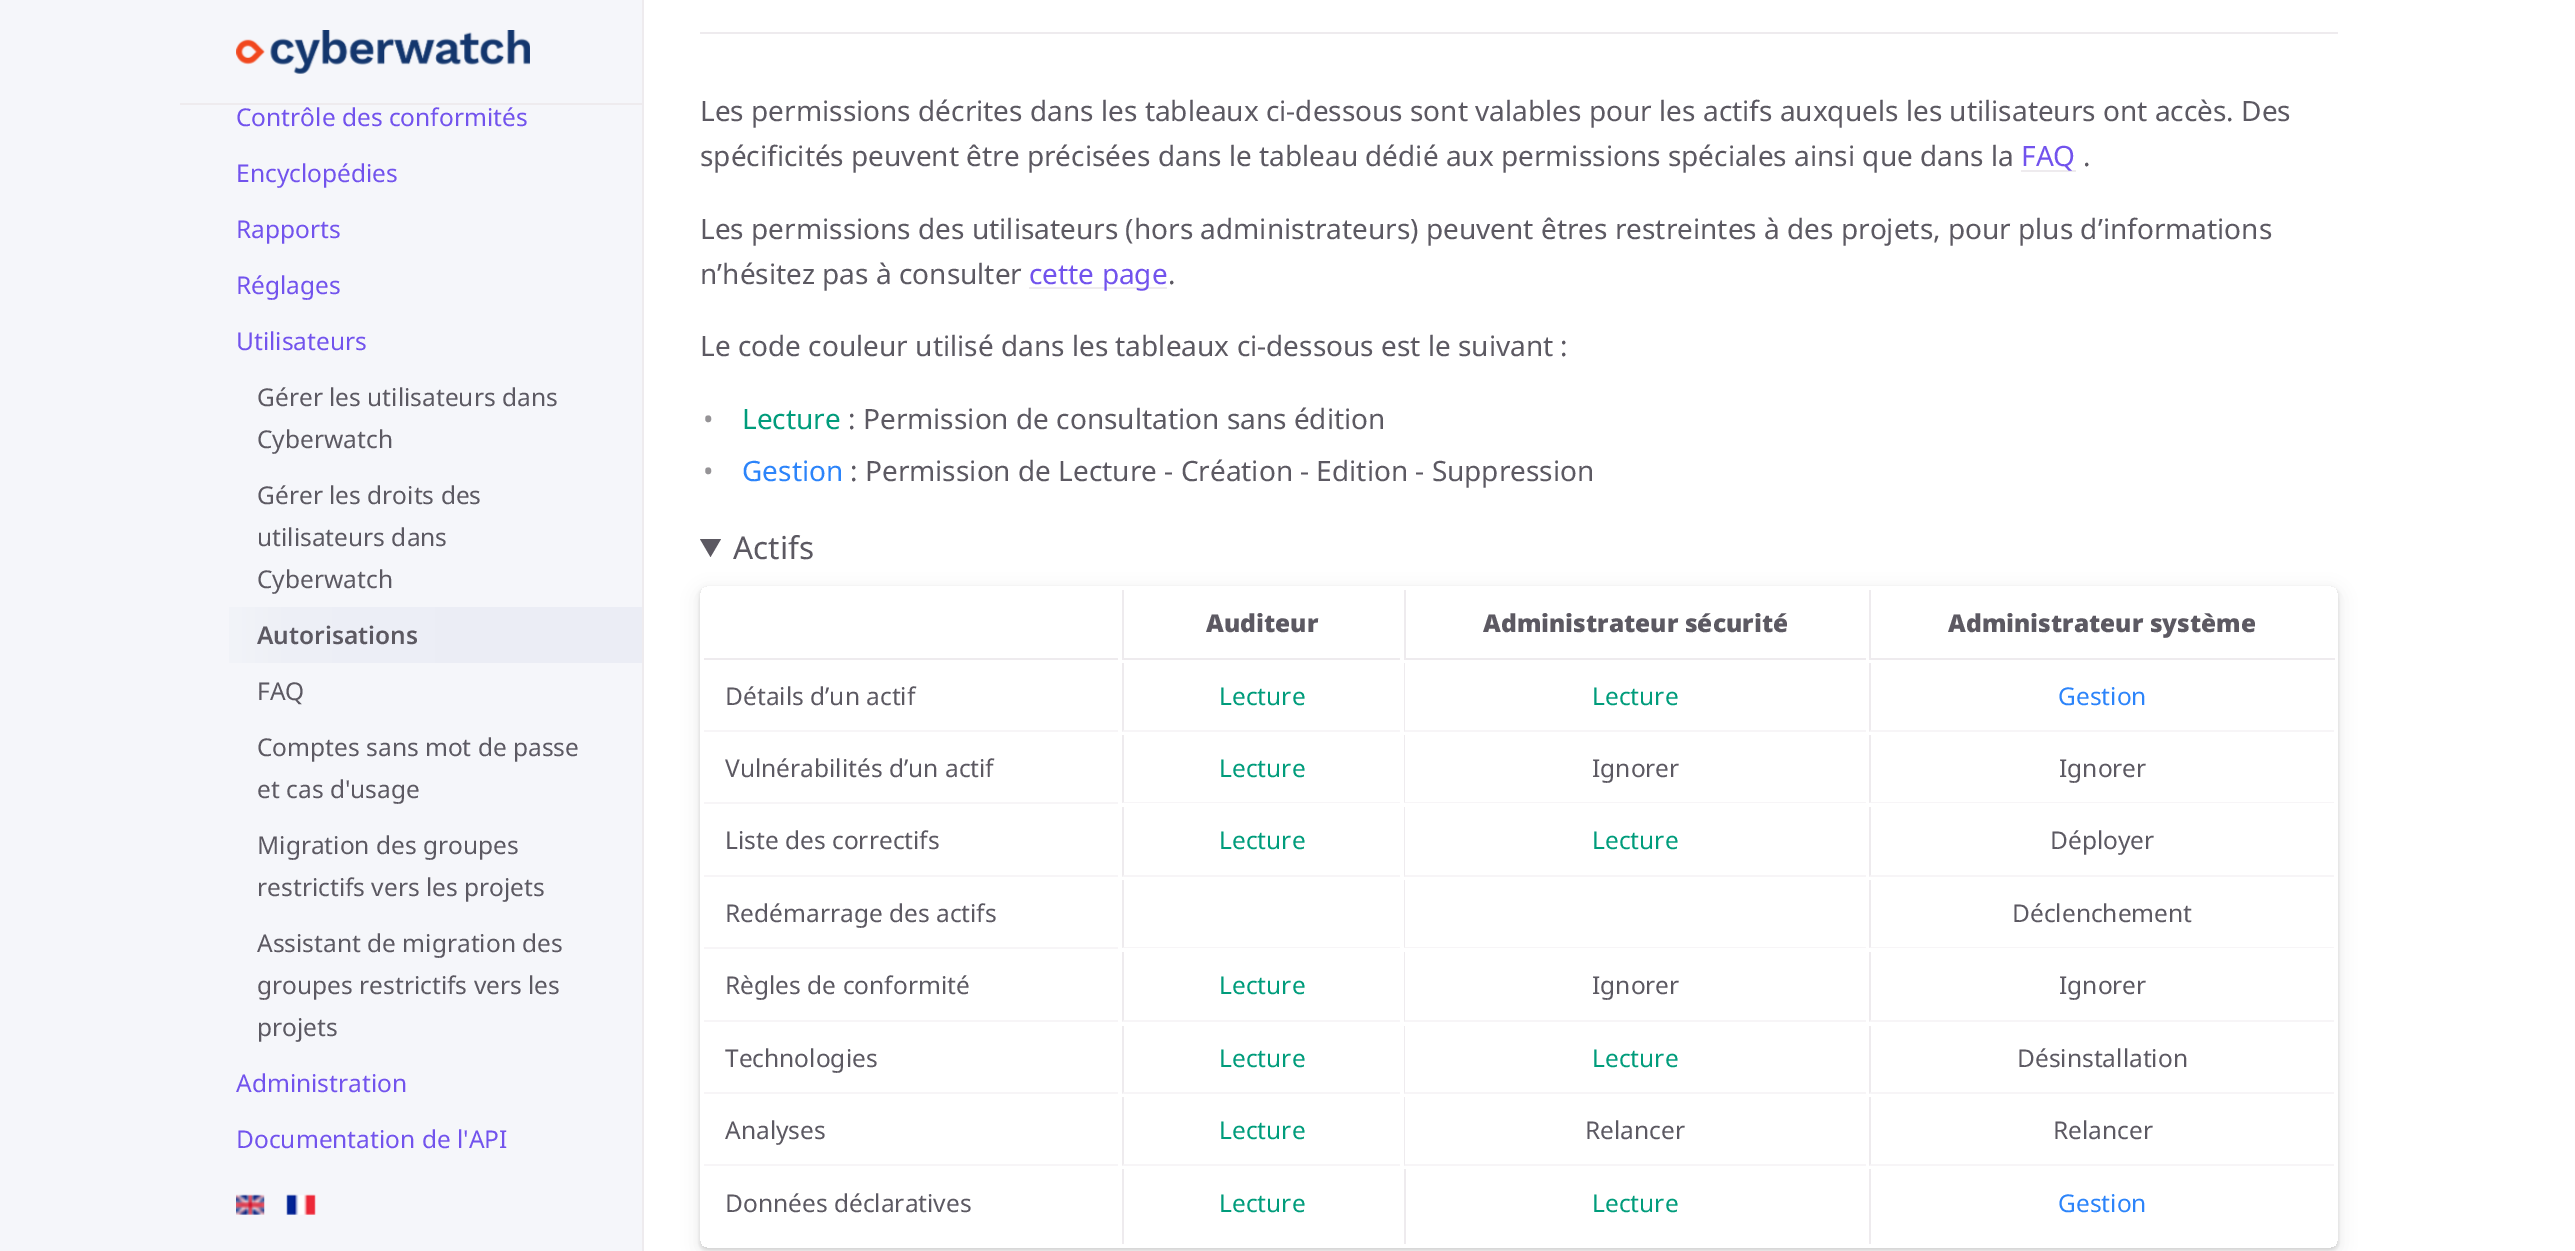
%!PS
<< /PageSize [2575 1251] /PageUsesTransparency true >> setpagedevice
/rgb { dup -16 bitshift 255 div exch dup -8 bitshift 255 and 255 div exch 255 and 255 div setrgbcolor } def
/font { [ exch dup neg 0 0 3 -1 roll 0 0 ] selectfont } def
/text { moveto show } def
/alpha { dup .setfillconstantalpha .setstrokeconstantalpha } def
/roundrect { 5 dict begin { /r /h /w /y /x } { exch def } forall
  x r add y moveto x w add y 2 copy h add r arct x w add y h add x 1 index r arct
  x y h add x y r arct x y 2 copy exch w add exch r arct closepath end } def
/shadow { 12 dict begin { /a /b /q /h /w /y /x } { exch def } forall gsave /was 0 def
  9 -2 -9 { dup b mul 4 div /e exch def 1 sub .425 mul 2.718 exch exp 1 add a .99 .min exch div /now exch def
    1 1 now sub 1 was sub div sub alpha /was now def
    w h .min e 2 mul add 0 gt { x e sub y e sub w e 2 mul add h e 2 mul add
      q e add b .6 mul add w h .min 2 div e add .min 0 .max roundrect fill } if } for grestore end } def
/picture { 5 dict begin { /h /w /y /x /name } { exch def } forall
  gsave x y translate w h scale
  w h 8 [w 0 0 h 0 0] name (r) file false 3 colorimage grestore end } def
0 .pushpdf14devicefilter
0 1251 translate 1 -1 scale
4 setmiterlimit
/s1 { /NotoSans-Regular 24.5 font 16#7253ED rgb } def
/s2 { /NotoSans-Regular 24.5 font 16#5C5962 rgb } def
/s3 { /NotoSans-SemiBold 24.5 font 16#5C5962 rgb } def
/s4 { /NotoSans-Regular 28 font 16#5C5962 rgb } def
/s5 { /NotoSans-Regular 28 font 16#7253ED rgb } def
/s6 { /NotoSans-Regular 28 font 16#959396 rgb } def
/s7 { /NotoSans-Regular 28 font 16#009C7B rgb } def
/s8 { /NotoSans-Regular 28 font 16#2C84FA rgb } def
/s9 { /NotoSans-Regular 31.5 font 16#5C5962 rgb } def
/s10 { /NotoSans-Black 24.5 font 16#5C5962 rgb } def
/s11 { /NotoSans-Regular 24.5 font 16#009C7B rgb } def
/s12 { /NotoSans-Regular 24.5 font 16#2C84FA rgb } def
16#FFFFFF rgb
0 0 2575 1251 rectfill
16#F5F6FA rgb
0 0 642 1251 rectfill
16#EEEBEE rgb
642 0 2 1251 rectfill
180 103 462 2 rectfill
(pic1.raw) 236 30 294 44 picture
s1
(Contrôle des conformités) 236 126 text
(Encyclopédies) 236 182 text
(Rapports) 236 238 text
(Réglages) 236 294 text
(Utilisateurs) 236 350 text
s2
(Gérer les utilisateurs dans) 257 406 text
(Cyberwatch) 257 448 text
(Gérer les droits des) 257 504 text
(utilisateurs dans) 257 546 text
(Cyberwatch) 257 588 text
gsave 229 607 moveto 642 607 lineto 642 663 lineto 229 663 lineto closepath clip newpath
<< /ShadingType 2 /ColorSpace /DeviceRGB /Coords [642 635 201 635] /Extend [true true] /Function << /FunctionType 3 /Domain [0 1] /Functions [<< /FunctionType 2 /Domain [0 1] /C0 [0.922 0.929 0.961] /C1 [0.929 0.937 0.965] /N 1 >> << /FunctionType 2 /Domain [0 1] /C0 [0.929 0.937 0.965] /C1 [0.961 0.965 0.98] /N 1 >>] /Bounds [0.8] /Encode [0 1 0 1] >> >> shfill grestore
s3
(Autorisations) 257 644 text
s2
(FAQ) 257 700 text
(Comptes sans mot de passe) 257 756 text
(et cas d'usage) 257 798 text
(Migration des groupes) 257 854 text
(restrictifs vers les projets) 257 896 text
(Assistant de migration des) 257 952 text
(groupes restrictifs vers les) 257 994 text
(projets) 257 1036 text
s1
(Administration) 236 1092 text
(Documentation de l'API) 236 1148 text
(pic2.raw) 236 1194 29 21 picture
(pic3.raw) 286 1194 30 21 picture
16#EEEBEE rgb
700 32 1638 2 rectfill
s4
(Les permissions décrites dans les tableaux ci-dessous sont valables pour les actifs auxquels les utilisateurs ont accès. Des) 700 121 text
(spécificités peuvent être précisées dans le tableau dédié aux permissions spéciales ainsi que dans la) 700 166 text
16#EEEBEE rgb
2021 170 55 2 rectfill
s5
(FAQ) 2021 166 text
s4
(.) 2083 166 text
(Les permissions des utilisateurs \(hors administrateurs\) peuvent êtres restreintes à des projets, pour plus d’informations) 700 239 text
(n’hésitez pas à consulter) 700 284 text
16#EEEBEE rgb
1029 287 138 2 rectfill
s5
(cette page) 1029 284 text
s4
(.) 1168 284 text
(Le code couleur utilisé dans les tableaux ci-dessous est le suivant :) 700 356 text
s6
(•) 703 429 text
s7
(Lecture) 742 429 text
s4
(: Permission de consultation sans édition) 848 429 text
s6
(•) 703 481 text
s8
(Gestion) 742 481 text
s4
(: Permission de Lecture - Création - Edition - Suppression) 850 481 text
700 539 moveto 721 539 lineto 710.5 557 lineto closepath fill
s9
(Actifs) 733 559 text
gsave
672 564 moveto 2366 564 lineto 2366 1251 lineto 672 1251 lineto closepath 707 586 moveto 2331 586 lineto 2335 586 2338 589 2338 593 curveto 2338 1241 lineto 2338 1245 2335 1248 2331 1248 curveto 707 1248 lineto 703 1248 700 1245 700 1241 curveto 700 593 lineto 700 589 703 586 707 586 curveto closepath eoclip newpath
16#000000 rgb
700 592 1638 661 7 9 0.08 shadow
grestore
gsave
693 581 moveto 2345 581 lineto 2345 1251 lineto 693 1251 lineto closepath 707 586 moveto 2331 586 lineto 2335 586 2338 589 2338 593 curveto 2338 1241 lineto 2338 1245 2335 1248 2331 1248 curveto 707 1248 lineto 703 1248 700 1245 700 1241 curveto 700 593 lineto 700 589 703 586 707 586 curveto closepath eoclip newpath
16#000000 rgb
700 588 1638 662 7 2 0.12 shadow
grestore
16#EEEBEE rgb
1122 658 278 2 rectfill
1122 590 2 70 rectfill
s10
(Auditeur) 1206 632 text
16#EEEBEE rgb
1404 658 462 2 rectfill
1404 590 2 70 rectfill
s10
(Administrateur sécurité) 1483 632 text
16#EEEBEE rgb
1869 658 466 2 rectfill
1869 590 2 70 rectfill
s10
(Administrateur système) 1948 632 text
16#EEEBEE rgb
704 658 414 2 rectfill
16#F7F5F7 rgb
704 730 414 2 rectfill
s2
(Détails d’un actif) 725 705 text
16#F7F5F7 rgb
1400 732 moveto 1122 732 lineto 1124 730 lineto 1400 730 lineto closepath fill
16#EEEBEE rgb
1122 732 moveto 1122 663 lineto 1124 663 lineto 1124 730 lineto closepath fill
s11
(Lecture) 1219 705 text
16#F7F5F7 rgb
1866 732 moveto 1404 732 lineto 1405 730 lineto 1866 730 lineto closepath fill
16#EEEBEE rgb
1404 732 moveto 1404 663 lineto 1405 663 lineto 1405 730 lineto closepath fill
s11
(Lecture) 1592 705 text
16#F7F5F7 rgb
2334 732 moveto 1869 732 lineto 1871 730 lineto 2334 730 lineto closepath fill
16#EEEBEE rgb
1869 732 moveto 1869 663 lineto 1871 663 lineto 1871 730 lineto closepath fill
s12
(Gestion) 2058 705 text
16#F7F5F7 rgb
704 802 414 2 rectfill
s2
(Vulnérabilités d’un actif) 725 777 text
16#F7F5F7 rgb
1400 803 moveto 1122 803 lineto 1124 802 lineto 1400 802 lineto closepath fill
16#EEEBEE rgb
1122 803 moveto 1122 735 lineto 1124 735 lineto 1124 802 lineto closepath fill
s11
(Lecture) 1219 777 text
16#F7F5F7 rgb
1866 803 moveto 1404 803 lineto 1405 802 lineto 1866 802 lineto closepath fill
16#EEEBEE rgb
1404 803 moveto 1404 735 lineto 1405 735 lineto 1405 802 lineto closepath fill
s2
(Ignorer) 1592 777 text
16#F7F5F7 rgb
2334 803 moveto 1869 803 lineto 1871 802 lineto 2334 802 lineto closepath fill
16#EEEBEE rgb
1869 803 moveto 1869 735 lineto 1871 735 lineto 1871 802 lineto closepath fill
s2
(Ignorer) 2059 777 text
16#F7F5F7 rgb
704 875 414 2 rectfill
s2
(Liste des correctifs) 725 849 text
16#F7F5F7 rgb
1400 877 moveto 1122 877 lineto 1124 875 lineto 1400 875 lineto closepath fill
16#EEEBEE rgb
1122 877 moveto 1122 807 lineto 1124 807 lineto 1124 875 lineto closepath fill
s11
(Lecture) 1219 849 text
16#F7F5F7 rgb
1866 877 moveto 1404 877 lineto 1405 875 lineto 1866 875 lineto closepath fill
16#EEEBEE rgb
1404 877 moveto 1404 807 lineto 1405 807 lineto 1405 875 lineto closepath fill
s11
(Lecture) 1592 849 text
16#F7F5F7 rgb
2334 877 moveto 1869 877 lineto 1871 875 lineto 2334 875 lineto closepath fill
16#EEEBEE rgb
1869 877 moveto 1869 807 lineto 1871 807 lineto 1871 875 lineto closepath fill
s2
(Déployer) 2050 849 text
16#F7F5F7 rgb
704 947 414 2 rectfill
s2
(Redémarrage des actifs) 725 922 text
16#F7F5F7 rgb
1400 948 moveto 1122 948 lineto 1124 947 lineto 1400 947 lineto closepath fill
16#EEEBEE rgb
1122 948 moveto 1122 880 lineto 1124 880 lineto 1124 947 lineto closepath fill
16#F7F5F7 rgb
1866 948 moveto 1404 948 lineto 1405 947 lineto 1866 947 lineto closepath fill
16#EEEBEE rgb
1404 948 moveto 1404 880 lineto 1405 880 lineto 1405 947 lineto closepath fill
16#F7F5F7 rgb
2334 948 moveto 1869 948 lineto 1871 947 lineto 2334 947 lineto closepath fill
16#EEEBEE rgb
1869 948 moveto 1869 880 lineto 1871 880 lineto 1871 947 lineto closepath fill
s2
(Déclenchement) 2012 922 text
16#F7F5F7 rgb
704 1020 414 2 rectfill
s2
(Règles de conformité) 725 994 text
16#F7F5F7 rgb
1400 1022 moveto 1122 1022 lineto 1124 1020 lineto 1400 1020 lineto closepath fill
16#EEEBEE rgb
1122 1022 moveto 1122 952 lineto 1124 952 lineto 1124 1020 lineto closepath fill
s11
(Lecture) 1219 994 text
16#F7F5F7 rgb
1866 1022 moveto 1404 1022 lineto 1405 1020 lineto 1866 1020 lineto closepath fill
16#EEEBEE rgb
1404 1022 moveto 1404 952 lineto 1405 952 lineto 1405 1020 lineto closepath fill
s2
(Ignorer) 1592 994 text
16#F7F5F7 rgb
2334 1022 moveto 1869 1022 lineto 1871 1020 lineto 2334 1020 lineto closepath fill
16#EEEBEE rgb
1869 1022 moveto 1869 952 lineto 1871 952 lineto 1871 1020 lineto closepath fill
s2
(Ignorer) 2059 994 text
16#F7F5F7 rgb
704 1092 414 2 rectfill
s2
(Technologies) 725 1067 text
16#F7F5F7 rgb
1400 1094 moveto 1122 1094 lineto 1124 1092 lineto 1400 1092 lineto closepath fill
16#EEEBEE rgb
1122 1094 moveto 1122 1026 lineto 1124 1026 lineto 1124 1092 lineto closepath fill
s11
(Lecture) 1219 1067 text
16#F7F5F7 rgb
1866 1094 moveto 1404 1094 lineto 1405 1092 lineto 1866 1092 lineto closepath fill
16#EEEBEE rgb
1404 1094 moveto 1404 1026 lineto 1405 1026 lineto 1405 1092 lineto closepath fill
s11
(Lecture) 1592 1067 text
16#F7F5F7 rgb
2334 1094 moveto 1869 1094 lineto 1871 1092 lineto 2334 1092 lineto closepath fill
16#EEEBEE rgb
1869 1094 moveto 1869 1026 lineto 1871 1026 lineto 1871 1092 lineto closepath fill
s2
(Désinstallation) 2017 1067 text
16#F7F5F7 rgb
704 1164 414 2 rectfill
s2
(Analyses) 725 1139 text
16#F7F5F7 rgb
1400 1166 moveto 1122 1166 lineto 1124 1164 lineto 1400 1164 lineto closepath fill
16#EEEBEE rgb
1122 1166 moveto 1122 1097 lineto 1124 1097 lineto 1124 1164 lineto closepath fill
s11
(Lecture) 1219 1139 text
16#F7F5F7 rgb
1866 1166 moveto 1404 1166 lineto 1405 1164 lineto 1866 1164 lineto closepath fill
16#EEEBEE rgb
1404 1166 moveto 1404 1097 lineto 1405 1097 lineto 1405 1164 lineto closepath fill
s2
(Relancer) 1585 1139 text
16#F7F5F7 rgb
2334 1166 moveto 1869 1166 lineto 1871 1164 lineto 2334 1164 lineto closepath fill
16#EEEBEE rgb
1869 1166 moveto 1869 1097 lineto 1871 1097 lineto 1871 1164 lineto closepath fill
s2
(Relancer) 2053 1139 text
(Données déclaratives) 725 1212 text
16#EEEBEE rgb
1122 1169 2 75 rectfill
s11
(Lecture) 1219 1212 text
16#EEEBEE rgb
1404 1169 2 75 rectfill
s11
(Lecture) 1592 1212 text
16#EEEBEE rgb
1869 1169 2 75 rectfill
s12
(Gestion) 2058 1212 text
.poppdf14devicefilter showpage
